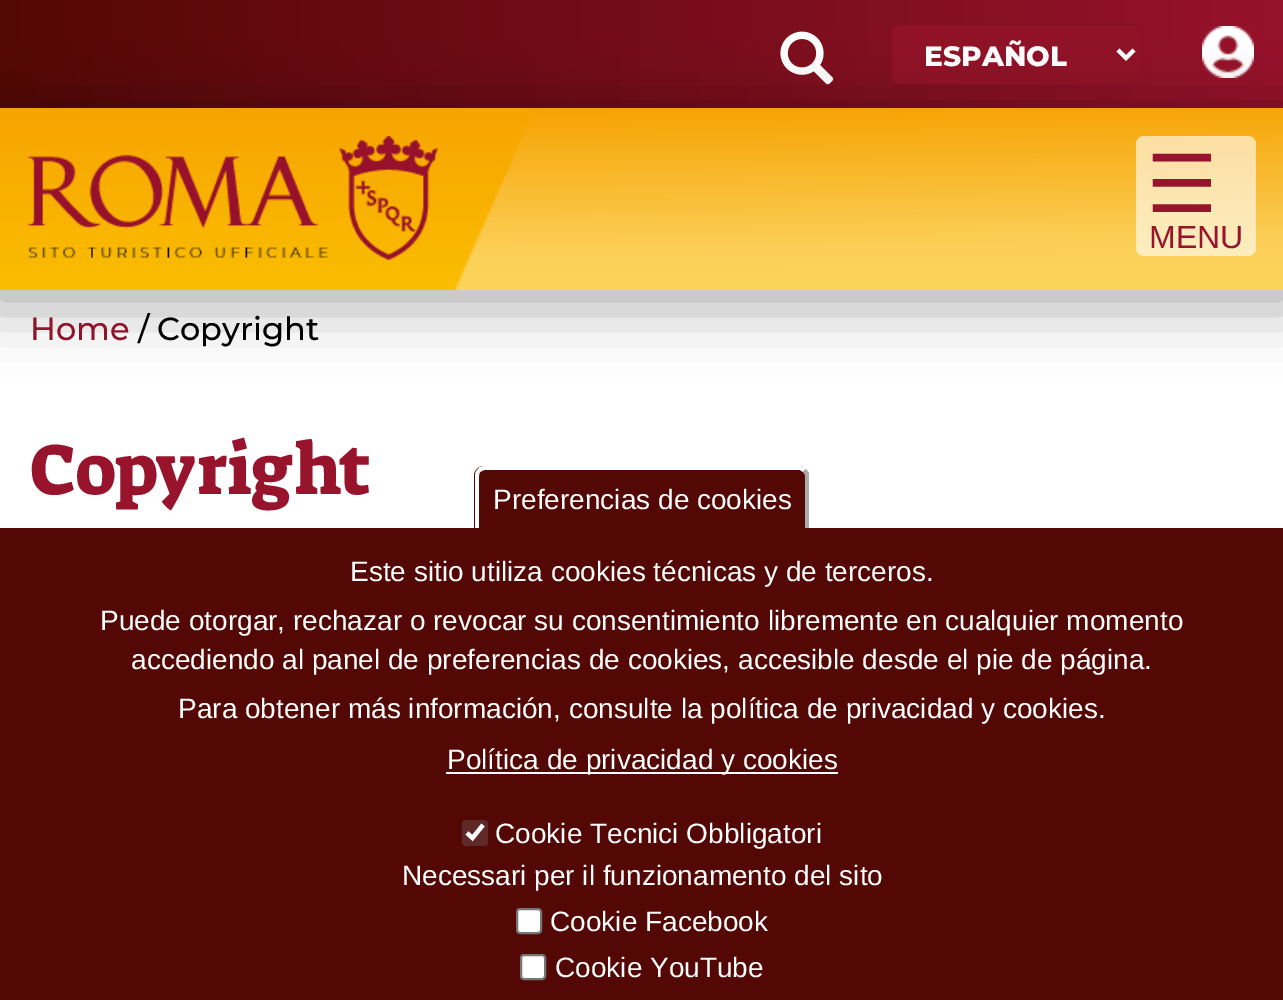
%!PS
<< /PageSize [1283 1000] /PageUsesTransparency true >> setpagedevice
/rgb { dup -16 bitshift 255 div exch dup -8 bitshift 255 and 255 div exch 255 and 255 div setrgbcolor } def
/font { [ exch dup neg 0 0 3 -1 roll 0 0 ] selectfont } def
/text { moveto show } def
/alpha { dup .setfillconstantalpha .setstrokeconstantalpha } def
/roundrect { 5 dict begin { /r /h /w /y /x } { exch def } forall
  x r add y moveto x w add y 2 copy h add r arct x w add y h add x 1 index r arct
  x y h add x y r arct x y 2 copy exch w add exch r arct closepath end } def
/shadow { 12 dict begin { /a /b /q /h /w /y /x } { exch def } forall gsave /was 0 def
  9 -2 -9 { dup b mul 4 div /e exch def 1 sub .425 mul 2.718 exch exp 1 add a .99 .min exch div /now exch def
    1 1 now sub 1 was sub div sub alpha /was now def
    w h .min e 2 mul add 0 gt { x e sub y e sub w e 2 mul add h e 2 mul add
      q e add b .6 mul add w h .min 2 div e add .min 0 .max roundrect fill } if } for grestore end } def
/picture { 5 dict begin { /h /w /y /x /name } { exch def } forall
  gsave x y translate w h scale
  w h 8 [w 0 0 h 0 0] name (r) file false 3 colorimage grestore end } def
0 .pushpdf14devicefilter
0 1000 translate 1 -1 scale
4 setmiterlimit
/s1 { /Montserrat-ExtraBold 28 font 16#FFFFFF rgb } def
/s2 { /LiberationSans-Regular 32 font 16#98132C rgb } def
/s3 { /Montserrat-Medium 32 font 16#91132B rgb } def
/s4 { /Montserrat-Medium 32 font 16#000000 rgb } def
/s5 { /SuezOne-Regular 72 font 16#98132C rgb } def
/s6 { /LiberationSans-Regular 28 font 16#FFFFFF rgb } def
16#FFFFFF rgb
0 0 1283 1000 rectfill
gsave 0 0 moveto 1283 0 lineto 1283 108 lineto 0 108 lineto closepath clip newpath
<< /ShadingType 2 /ColorSpace /DeviceRGB /Coords [0 54 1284 54] /Extend [true true] /Function << /FunctionType 2 /Domain [0 1] /C0 [0.329 0.031 0.02] /C1 [0.592 0.071 0.169] /N 1 >> >> shfill grestore
(pic1.raw) 780 31 54 54 picture
16#911226 rgb
892 24 250 60 8 roundrect fill
16#861123 rgb
900 26 moveto 1134 26 lineto 1138 26 1142 30 1142 34 curveto 1142 32 lineto 1142 28 1138 24 1134 24 curveto 900 24 lineto 896 24 892 28 892 32 curveto 892 34 lineto 892 30 896 26 900 26 curveto closepath fill
16#FFFFFF rgb
4 setlinewidth
1118 50 moveto 1126 58 lineto 1134 50 lineto stroke
s1
(ESPAÑOL) 924 66 text
(pic2.raw) 1202 26 52 52 picture
16#000000 rgb
-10 108 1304 202 0 30 0.3 shadow
(pic3.raw) 0 108 1283 182 picture
(pic4.raw) 28 136 410 125 picture
0.6 alpha
16#FFFFFF rgb
1136 136 120 120 8 roundrect fill
/DejaVuSans-Regular 80 font
1 alpha
16#98132C rgb
1146 212 moveto 29 0 (☰) ashow
s2
(MENU) 1149 248 text
s3
(Home) 30 340 text
s4
(/) 138 340 text
(Copyright) 157 340 text
s5
(Copyright) 30 494 text
16#540805 rgb
0 528 1283 472 rectfill
484 466 moveto 798 466 lineto 803.5 466 808 470.5 808 476 curveto 808 528 lineto 474 528 lineto 474 476 lineto 474 470.5 478.5 466 484 466 curveto closepath fill
16#FFFFFF rgb
485 466 moveto 799 466 lineto 801 466 804 467 806 469 curveto 803 472 lineto 800 470 lineto 485 470 lineto 483 470 482 471 480 472 curveto 478 469 lineto 479 467 482 466 485 466 curveto closepath fill
16#AAAAAA rgb
803 472 moveto 806 469 lineto 809 473 lineto 809 528 lineto 805 528 lineto 805 476 lineto 805 474 804 473 803 472 curveto closepath fill
16#FFFFFF rgb
475 528 moveto 479 528 lineto 479 476 lineto 479 475 479 473 480 472 curveto 478 469 lineto 476 471 475 473 475 476 curveto closepath fill
s6
(Preferencias de cookies) 493 509 text
(Este sitio utiliza cookies técnicas y de terceros.) 350 581 text
(Puede otorgar, rechazar o revocar su consentimiento libremente en cualquier momento) 100 630 text
(accediendo al panel de preferencias de cookies, accesible desde el pie de página.) 131 669 text
(Para obtener más información, consulte la política de privacidad y cookies.) 178 718 text
446 772 392 2 rectfill
(Política de privacidad y cookies) 447 769 text
16#5E2927 rgb
462 820 26 26 4 roundrect fill
16#FFFFFF rgb
4.2 setlinewidth
467 833 moveto 472.5 838 lineto 483 825 lineto stroke
(Cookie Tecnici Obbligatori) 495 843 text
(Necessari per il funzionamento del sito) 402 885 text
517 909 24 24 3 roundrect gsave fill grestore
16#767676 rgb
2 setlinewidth
stroke
s6
(Cookie Facebook) 550 931 text
521 955 24 24 3 roundrect gsave fill grestore
16#767676 rgb
stroke
s6
(Cookie YouTube) 555 977 text
.poppdf14devicefilter showpage
